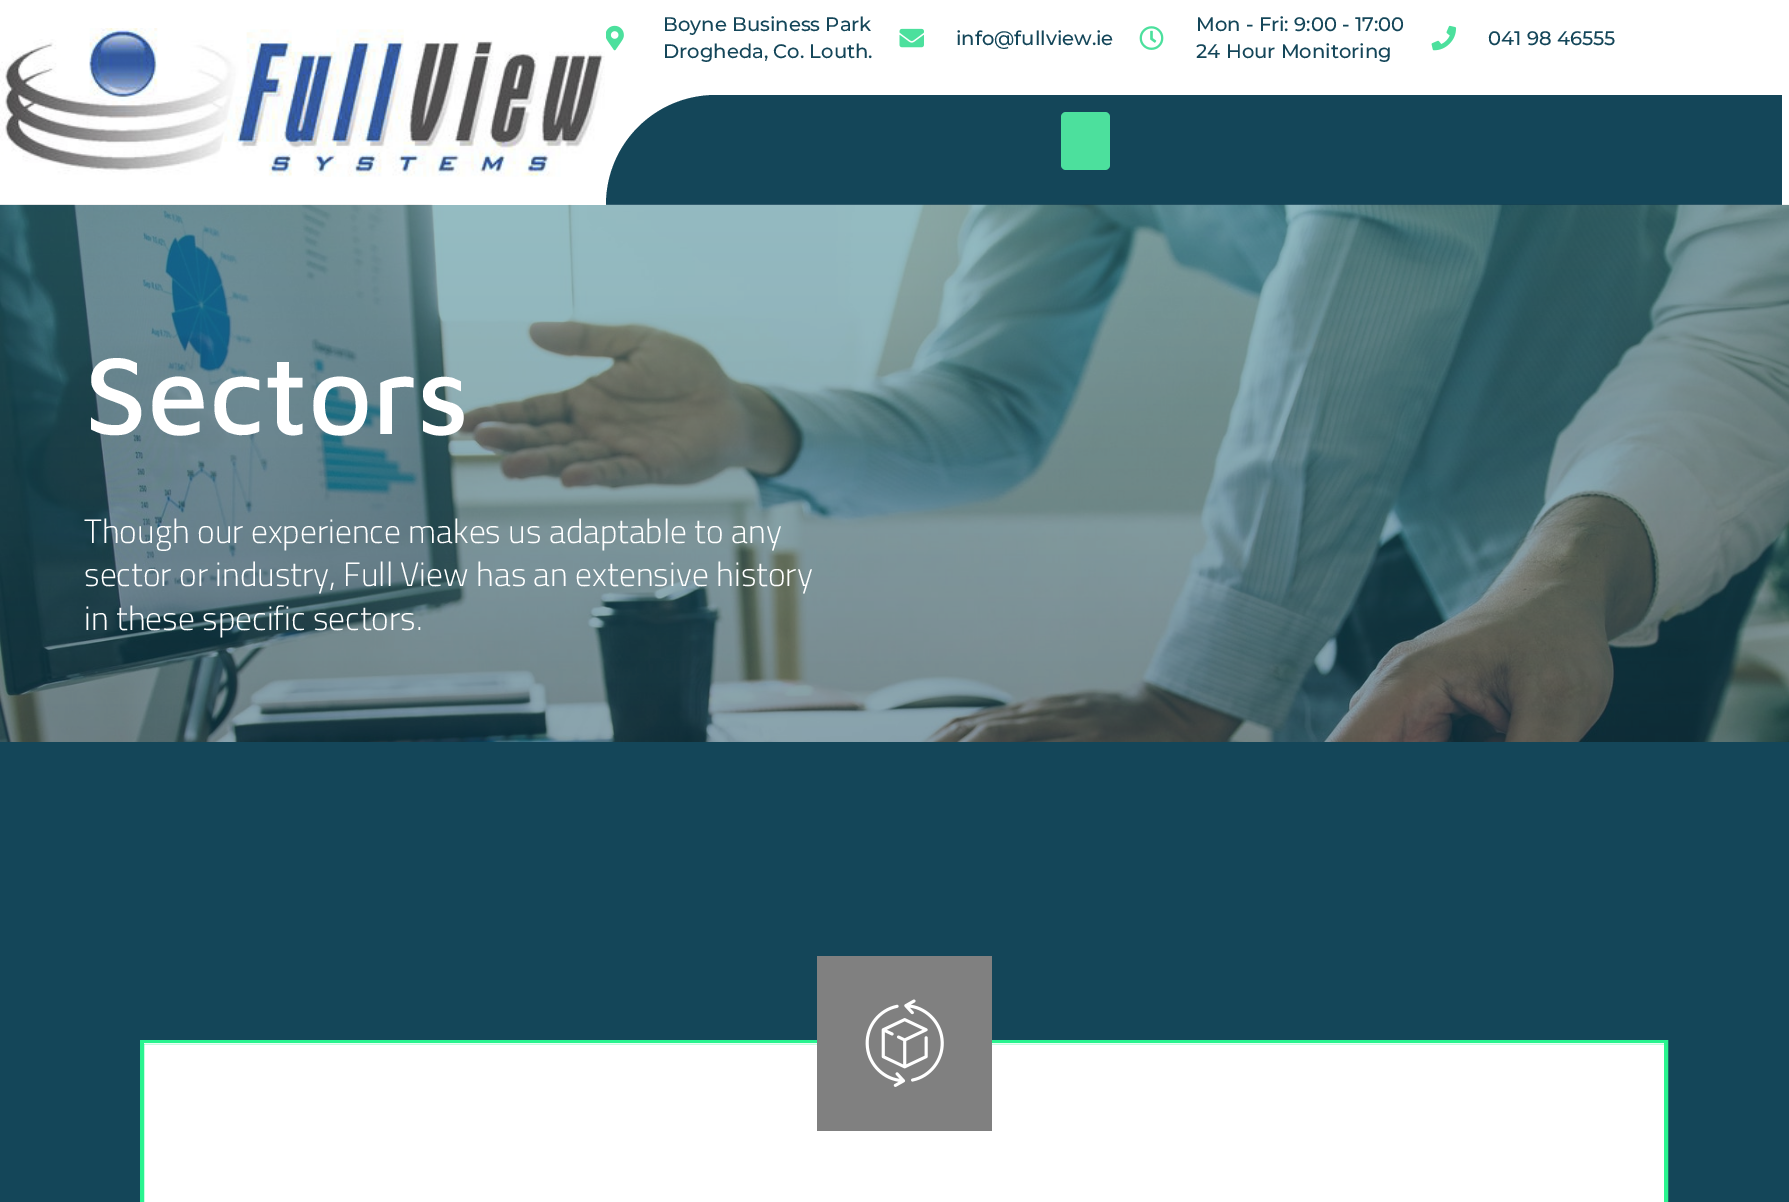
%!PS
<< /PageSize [1789 1202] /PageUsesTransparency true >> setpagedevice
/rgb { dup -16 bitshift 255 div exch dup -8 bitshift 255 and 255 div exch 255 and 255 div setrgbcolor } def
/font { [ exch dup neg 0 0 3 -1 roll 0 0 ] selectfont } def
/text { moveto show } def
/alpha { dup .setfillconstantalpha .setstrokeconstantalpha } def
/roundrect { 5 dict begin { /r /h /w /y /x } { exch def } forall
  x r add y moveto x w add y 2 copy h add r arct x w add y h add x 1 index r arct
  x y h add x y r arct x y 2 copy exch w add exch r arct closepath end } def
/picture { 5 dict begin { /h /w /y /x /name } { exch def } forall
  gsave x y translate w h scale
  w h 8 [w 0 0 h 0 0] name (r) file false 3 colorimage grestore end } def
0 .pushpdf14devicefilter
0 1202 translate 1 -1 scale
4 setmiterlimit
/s1 { /Montserrat-Medium 19.6 font 16#144659 rgb } def
/s2 { /MavenPro-Medium 112 font 16#FFFFFF rgb } def
/s3 { /Cairo-Light 33.6 font 16#FFFFFF rgb } def
16#FFFFFF rgb
0 0 1789 1202 rectfill
(pic1.raw) 0 28 605 149 picture
(pic2.raw) 606 25 18 26 picture
s1
(Boyne Business Park) 663 31 text
(Drogheda, Co. Louth.) 663 58 text
(pic3.raw) 899 28 25 20 picture
(info@fullview.ie) 956 45 text
(pic4.raw) 1139 26 25 24 picture
(Mon - Fri: 9:00 - 17:00) 1196 31 text
(24 Hour Monitoring) 1196 58 text
(pic5.raw) 1431 25 26 26 picture
(041 98 46555) 1488 45 text
716 95 moveto 1782 95 lineto 1782 205 lineto 606 205 lineto 606 144 655 95 716 95 curveto closepath fill
16#4CE09D rgb
1061 112 49 58 5 roundrect fill
gsave 0 205 moveto 1789 205 lineto 1789 742 lineto 0 742 lineto closepath clip newpath
<< /ShadingType 2 /ColorSpace /DeviceRGB /Coords [895 205 895 742] /Extend [true true] /Function << /FunctionType 2 /Domain [0 1] /C0 [0.161 0.471 0.518] /C1 [0.078 0.275 0.349] /N 1 >> >> shfill grestore
(pic6.raw) 0 204 1789 538 picture
s2
(Sectors) 84 434 text
s3
(Though our experience makes us adaptable to any) 84 543 text
(sector or industry, Full View has an extensive history) 84 586 text
(in these specific sectors.) 84 630 text
16#144659 rgb
0 742 1789 460 rectfill
16#FFFFFF rgb
142 1042 moveto 1666 1042 lineto 1666 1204 lineto 142 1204 lineto closepath gsave fill grestore
16#29F48F rgb
4 setlinewidth
stroke
0.9 alpha
16#FFFFFF rgb
144 1043 1520 1 rectfill
1 alpha
16#808080 rgb
817 956 175 175 rectfill
(pic7.raw) 865 999 79 88 picture
.poppdf14devicefilter showpage
